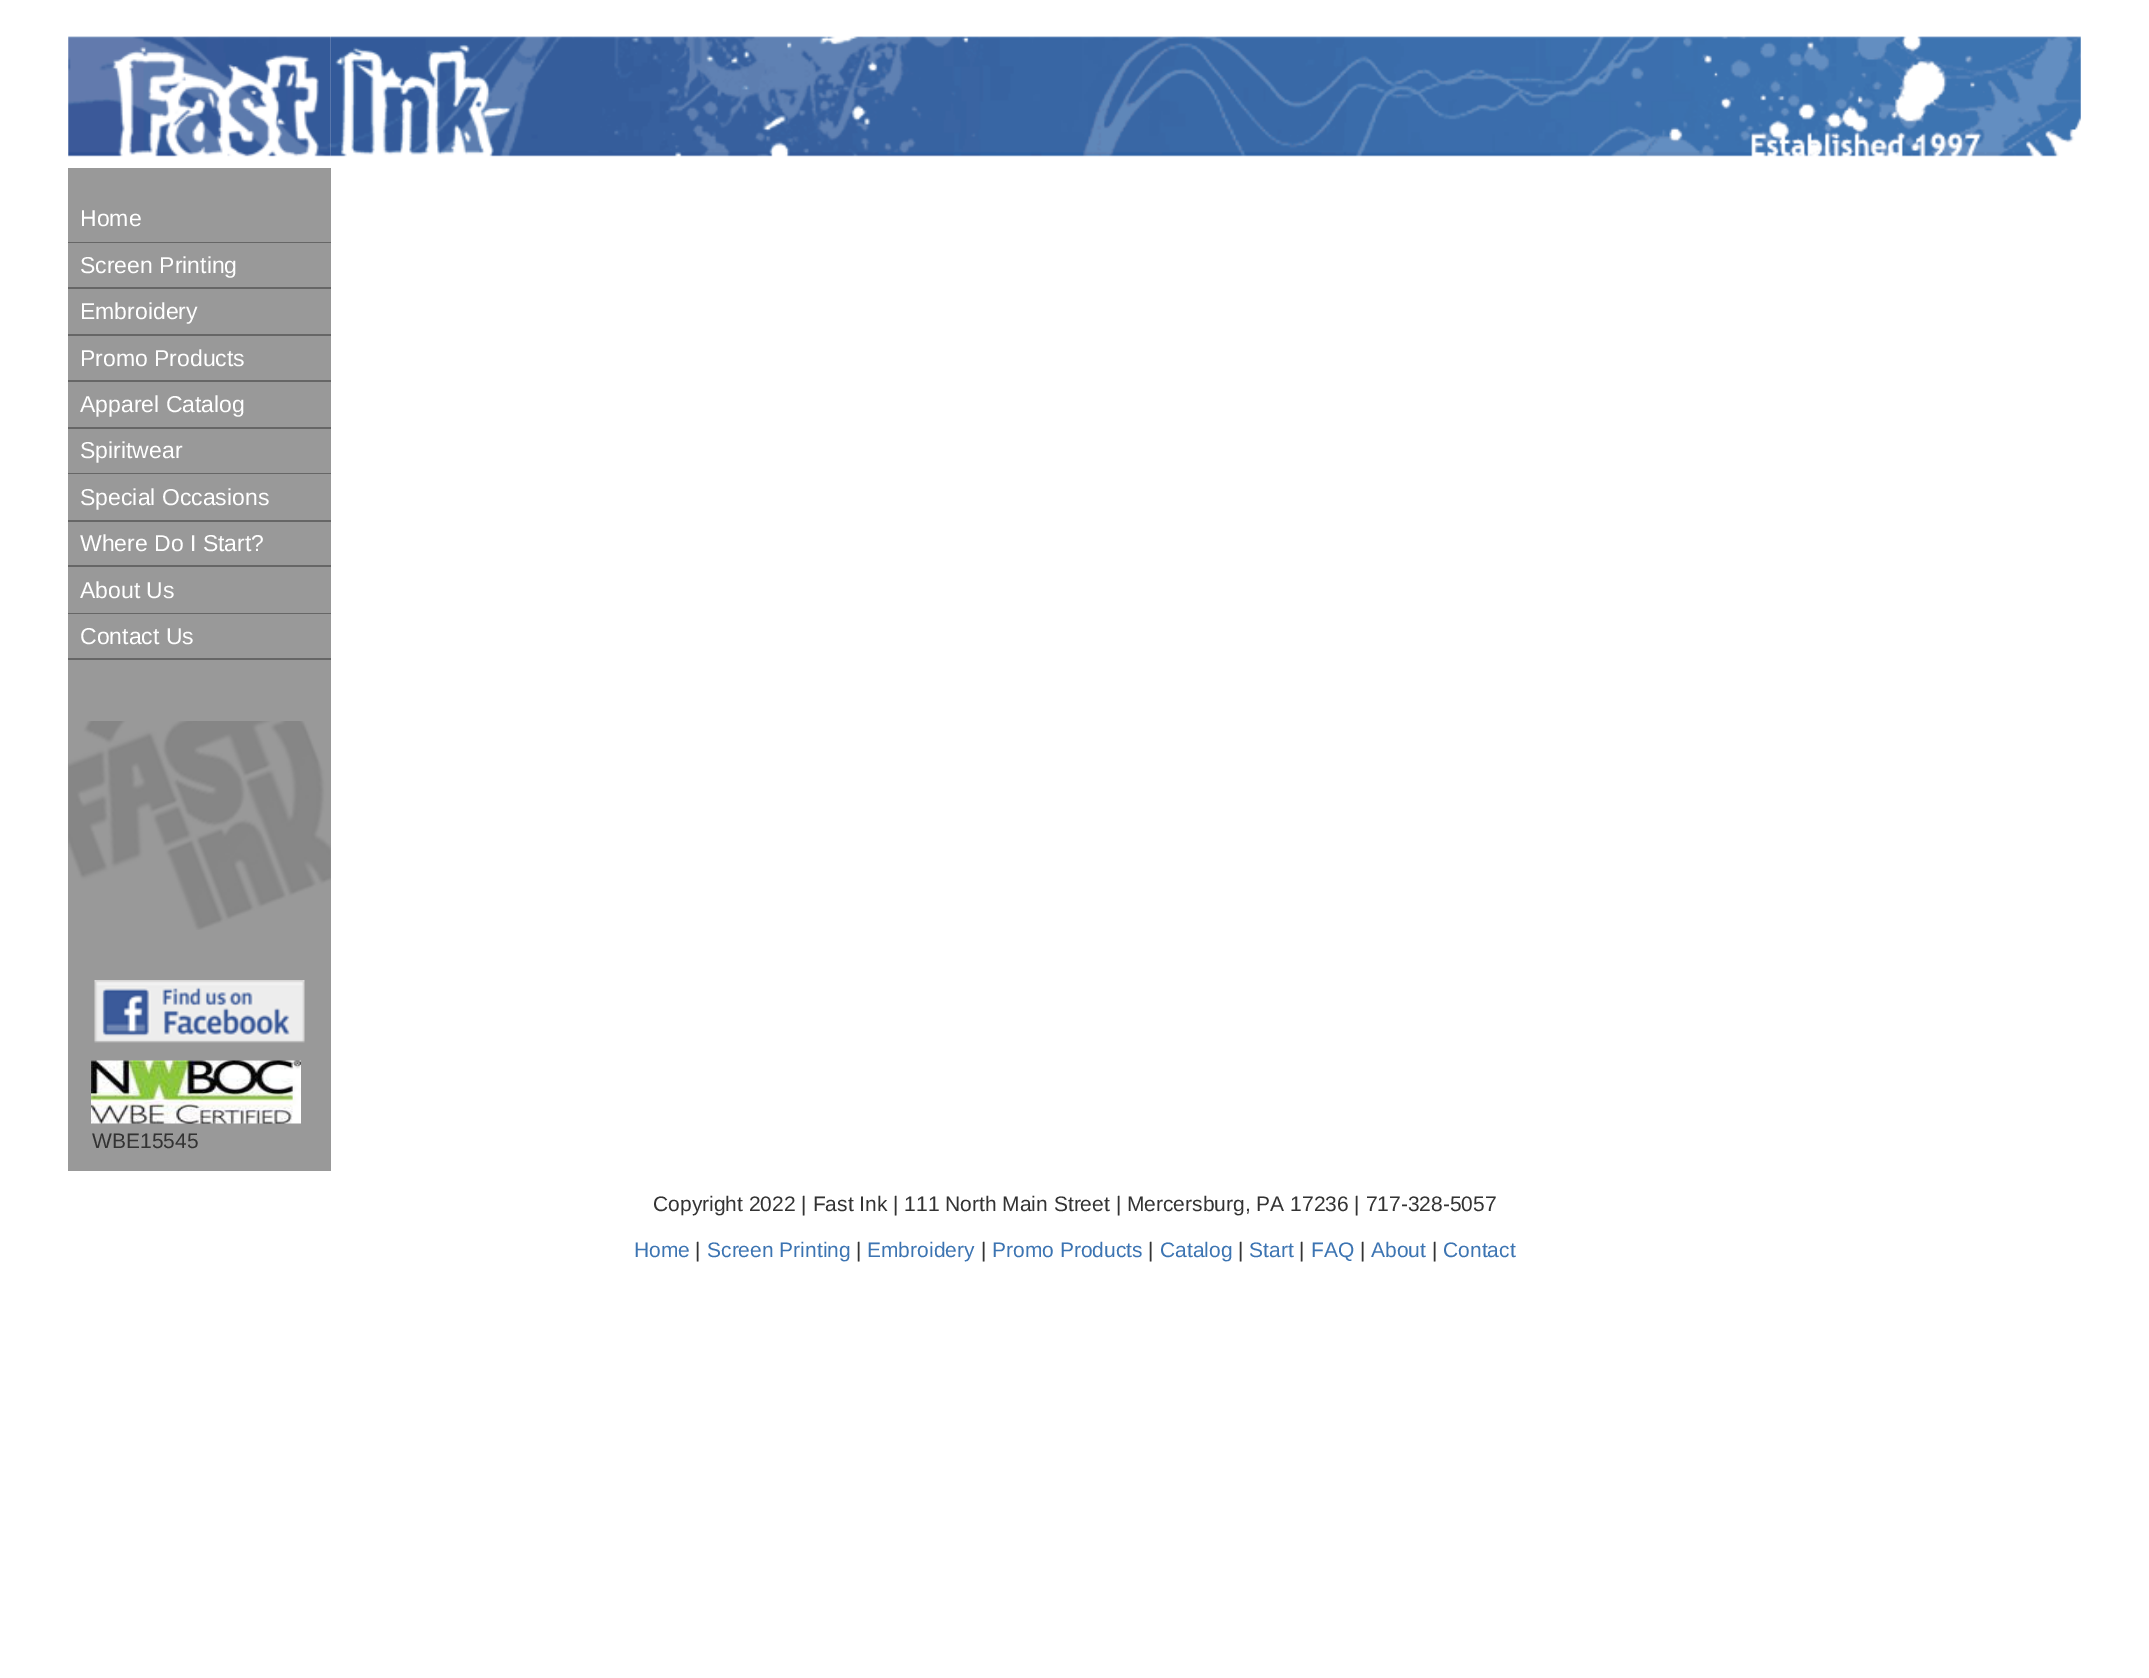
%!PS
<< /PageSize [2149 1678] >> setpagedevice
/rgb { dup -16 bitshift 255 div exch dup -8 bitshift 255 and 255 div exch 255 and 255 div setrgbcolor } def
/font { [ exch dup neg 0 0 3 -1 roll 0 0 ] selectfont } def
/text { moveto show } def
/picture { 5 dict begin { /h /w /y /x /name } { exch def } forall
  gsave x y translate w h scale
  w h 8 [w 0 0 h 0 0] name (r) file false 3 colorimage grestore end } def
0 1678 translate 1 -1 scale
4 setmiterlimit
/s1 { /LiberationSans-Regular 23 font 16#FFFFFF rgb } def
/s2 { /LiberationSans-Regular 21 font 16#333333 rgb } def
/s3 { /LiberationSans-Regular 21 font 16#3C74B2 rgb } def
16#FFFFFF rgb
0 0 2149 1678 rectfill
(pic1.raw) 68 36 263 121 picture
(pic2.raw) 330 36 1751 121 picture
16#999999 rgb
68 168 263 28 rectfill
68 196 263 975 rectfill
16#666666 rgb
68 242 263 1 rectfill
s1
(Home) 80 226 text
16#666666 rgb
68 287 263 2 rectfill
s1
(Screen Printing) 80 273 text
16#666666 rgb
68 334 263 2 rectfill
s1
(Embroidery) 80 319 text
16#666666 rgb
68 380 263 2 rectfill
s1
(Promo Products) 80 366 text
16#666666 rgb
68 427 263 2 rectfill
s1
(Apparel Catalog) 80 412 text
16#666666 rgb
68 473 263 1 rectfill
s1
(Spiritwear) 80 458 text
16#666666 rgb
68 520 263 2 rectfill
s1
(Special Occasions) 80 505 text
16#666666 rgb
68 565 263 2 rectfill
s1
(Where Do I Start?) 80 551 text
16#666666 rgb
68 613 263 1 rectfill
s1
(About Us) 80 598 text
16#666666 rgb
68 658 263 2 rectfill
s1
(Contact Us) 80 644 text
(pic3.raw) 68 721 263 209 picture
(pic4.raw) 94 980 211 63 picture
(pic5.raw) 91 1060 210 64 picture
s2
(WBE15545) 92 1148 text
(Copyright 2022 | Fast Ink | 111 North Main Street | Mercersburg, PA 17236 | 717-328-5057) 653 1211 text
s3
(Home) 634 1257 text
s2
(|) 695 1257 text
s3
(Screen Printing) 707 1257 text
s2
(|) 856 1257 text
s3
(Embroidery) 867 1257 text
s2
(|) 981 1257 text
s3
(Promo Products) 992 1257 text
s2
(|) 1148 1257 text
s3
(Catalog) 1160 1257 text
s2
(|) 1238 1257 text
s3
(Start) 1249 1257 text
s2
(|) 1299 1257 text
s3
(FAQ) 1311 1257 text
s2
(|) 1360 1257 text
s3
(About) 1371 1257 text
s2
(|) 1432 1257 text
s3
(Contact) 1443 1257 text
showpage
